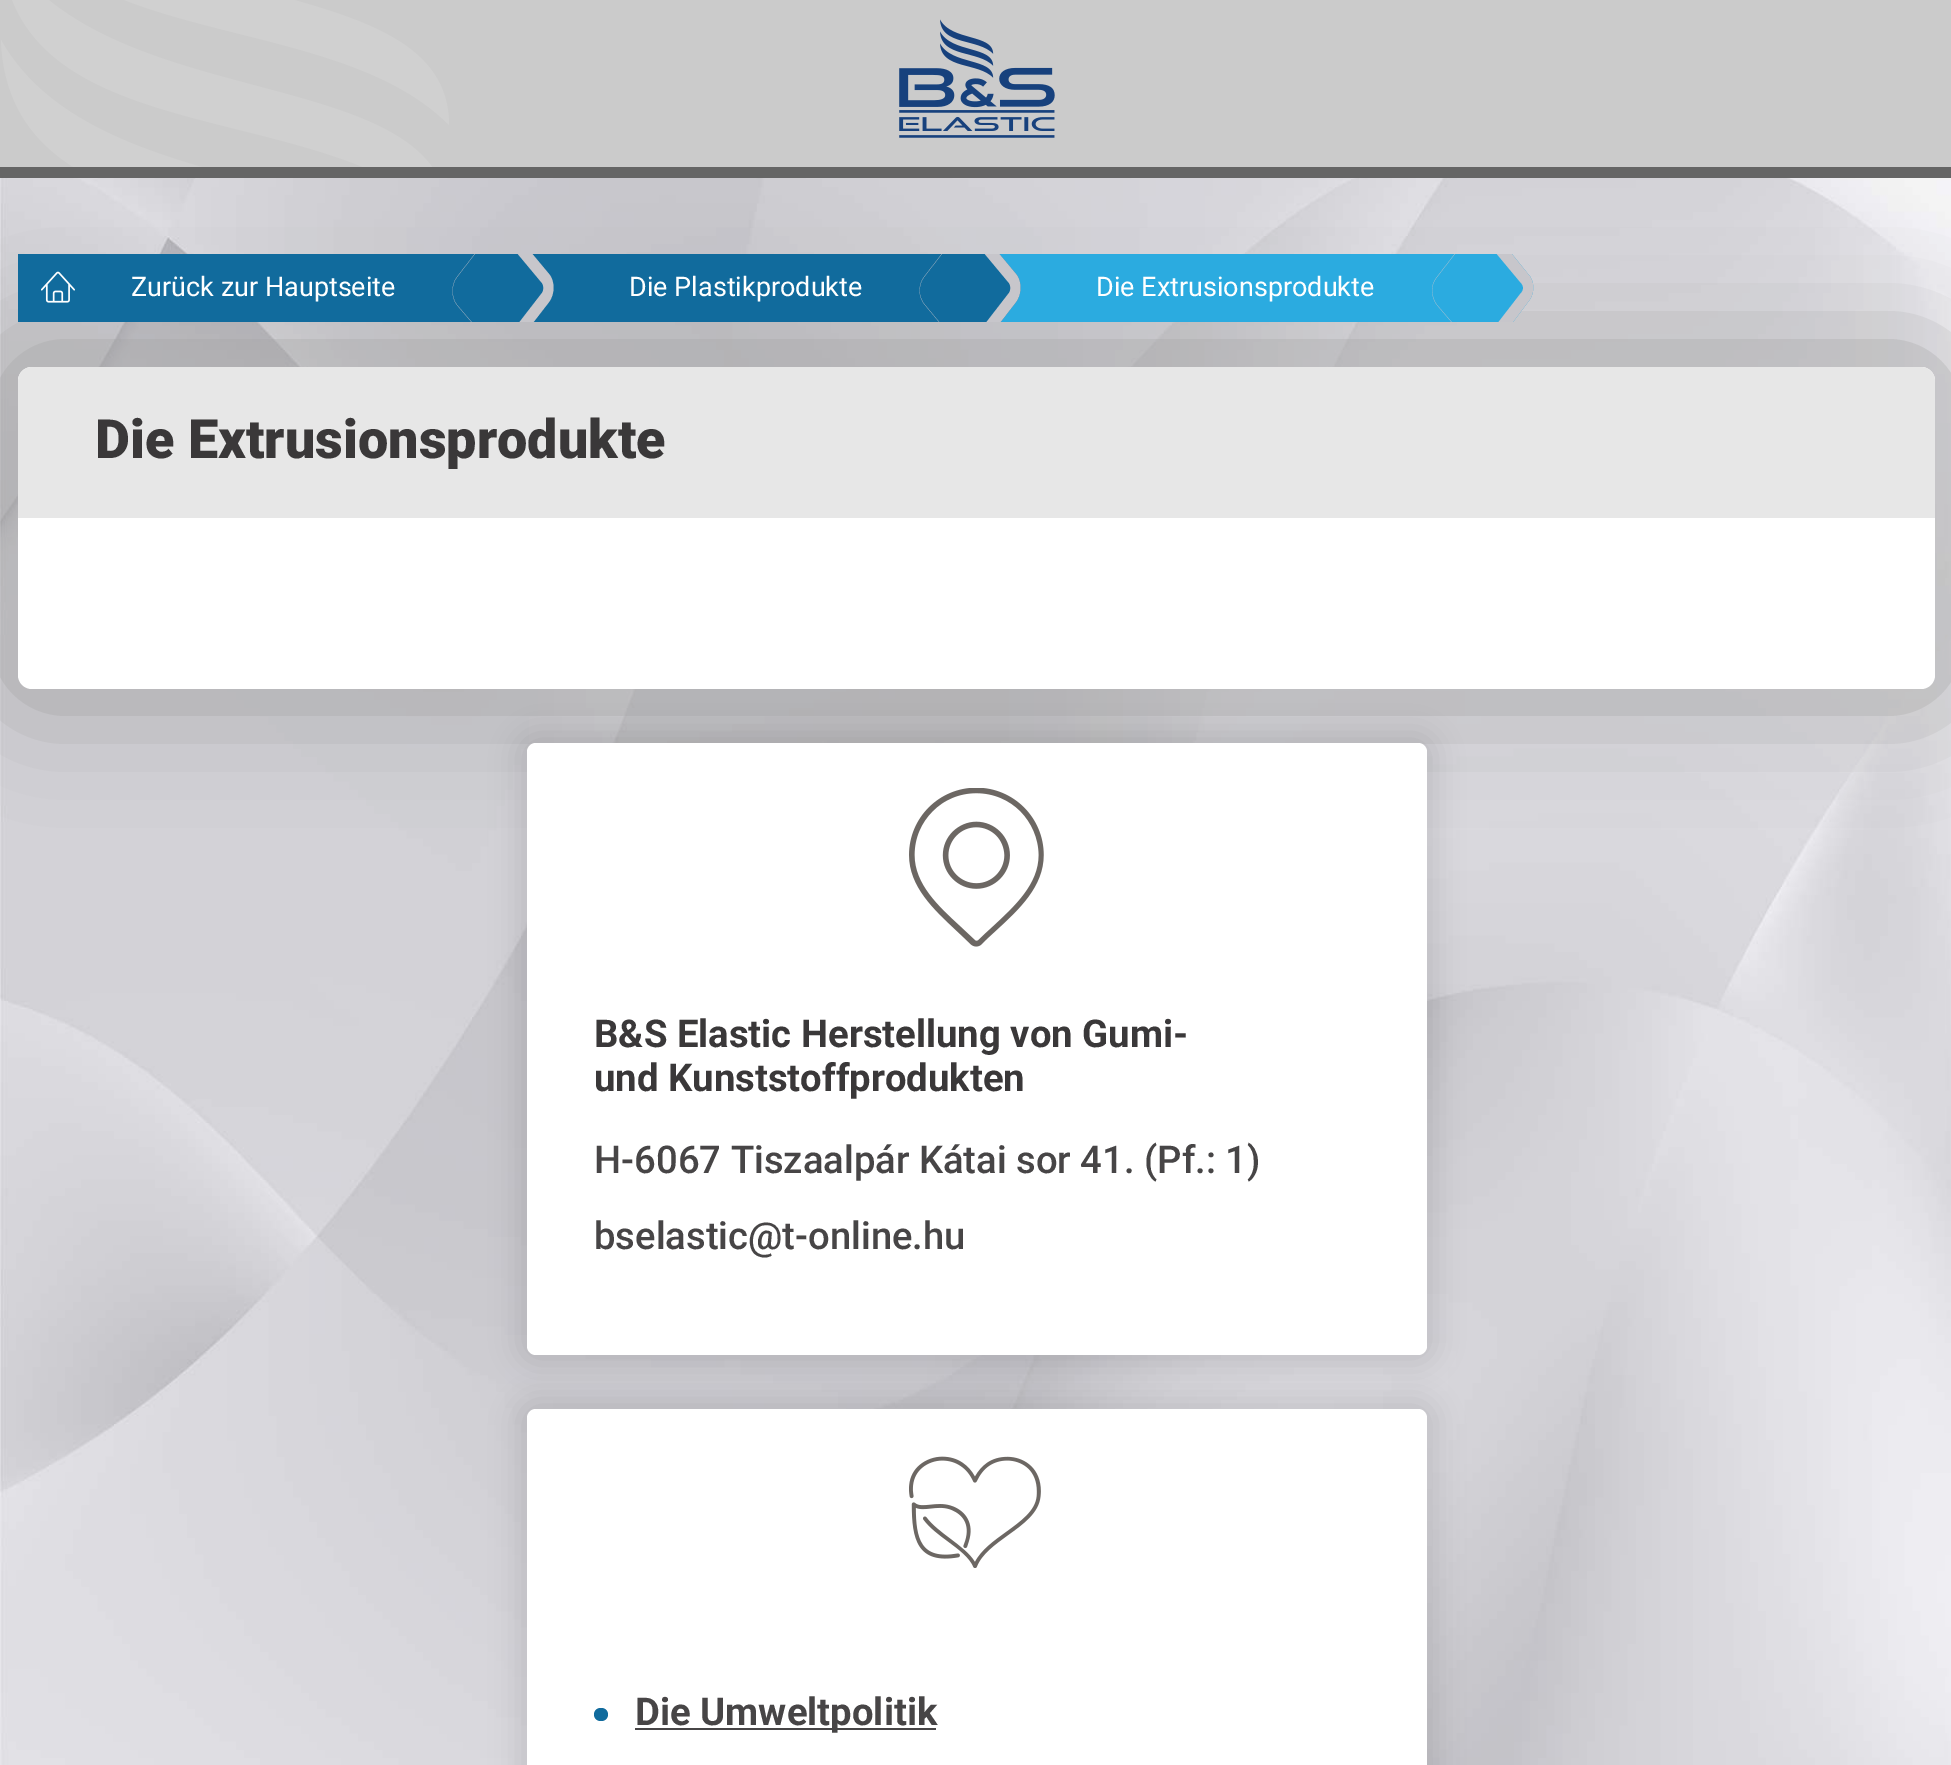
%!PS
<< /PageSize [1951 1765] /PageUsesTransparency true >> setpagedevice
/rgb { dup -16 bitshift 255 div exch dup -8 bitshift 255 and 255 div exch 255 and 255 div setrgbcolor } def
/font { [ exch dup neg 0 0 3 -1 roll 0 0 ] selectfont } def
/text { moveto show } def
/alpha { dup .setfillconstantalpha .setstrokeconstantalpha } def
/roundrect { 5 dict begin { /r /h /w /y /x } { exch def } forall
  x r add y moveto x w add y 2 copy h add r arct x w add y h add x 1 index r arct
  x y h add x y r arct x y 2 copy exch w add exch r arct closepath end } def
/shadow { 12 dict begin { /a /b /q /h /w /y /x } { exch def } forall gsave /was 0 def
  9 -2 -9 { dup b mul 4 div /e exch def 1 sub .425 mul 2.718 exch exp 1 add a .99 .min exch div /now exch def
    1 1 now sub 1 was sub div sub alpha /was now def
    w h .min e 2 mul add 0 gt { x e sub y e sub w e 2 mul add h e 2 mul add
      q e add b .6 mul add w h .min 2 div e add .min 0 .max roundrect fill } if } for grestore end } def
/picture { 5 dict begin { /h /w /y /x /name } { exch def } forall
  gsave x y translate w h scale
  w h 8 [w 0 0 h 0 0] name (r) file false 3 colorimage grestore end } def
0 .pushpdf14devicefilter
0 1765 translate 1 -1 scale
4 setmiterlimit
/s1 { /Roboto-Regular 27 font 16#FFFFFF rgb } def
/s2 { /Roboto-Black 54 font 16#3A3839 rgb } def
/s3 { /Roboto-Bold 38.25 font 16#3A3839 rgb } def
/s4 { /Roboto-Medium 38.25 font 16#474546 rgb } def
/s5 { /Roboto-Bold 38.25 font 16#474546 rgb } def
16#FFFFFF rgb
0 0 1951 1765 rectfill
(pic1.raw) 0 178 1951 1587 picture
16#656565 rgb
0 167 1951 11 rectfill
16#CBCBCB rgb
0 0 1951 167 rectfill
gsave
0 0 450 167 rectclip
16#D0D0D0 rgb
1 40 moveto 100 217 449 154 449 317 curveto 324 190 9 253 1 40 curveto closepath eofill
1 -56 moveto 100 121 449 57 449 221 curveto 324 94 9 157 1 -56 curveto closepath eofill
grestore
16#D0D0D0 rgb
1 -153 moveto 100 25 449 -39 449 125 curveto 324 -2 9 61 1 -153 curveto closepath eofill
(pic2.raw) 899 19 156 119 picture
16#A1A1A1 rgb
5 353 1944 349 27 56 1 shadow
16#116B9D rgb
18 254 457 68 rectfill
(pic3.raw) 41 271 34 32 picture
s1
(Zurück zur Hauptseite) 131 296 text
16#116B9D rgb
532 254 410 68 rectfill
gsave
18 254 1917 68 rectclip
514 232 moveto 549 274 lineto 555 281 555 294 549 302 curveto 515 346 lineto 509 354 498 354 492 346 curveto 457 305 lineto 451 297 451 285 457 277 curveto 491 233 lineto 497 225 508 225 514 232 curveto closepath fill
16#C7C6CB rgb
514 232 moveto 549 274 lineto 555 281 555 294 549 302 curveto 515 346 lineto 509 354 498 354 492 346 curveto 457 305 lineto 451 297 451 285 457 277 curveto 491 233 lineto 497 225 508 225 514 232 curveto closepath 507 241 moveto 542 283 lineto 544 286 544 290 542 293 curveto 508 337 lineto 501 345 494 349 492 346 curveto 457 305 lineto 451 297 451 285 457 277 curveto 491 233 lineto 493 230 501 234 507 241 curveto closepath eofill
grestore
s1
(Die Plastikprodukte) 629 296 text
16#2BABE0 rgb
999 254 456 68 rectfill
gsave
18 254 1917 68 rectclip
16#116B9D rgb
981 232 moveto 1016 274 lineto 1022 281 1022 294 1016 302 curveto 982 346 lineto 976 354 966 354 959 346 curveto 925 305 lineto 918 297 918 285 924 277 curveto 958 233 lineto 965 225 975 225 981 232 curveto closepath fill
16#C7C6CB rgb
981 232 moveto 1016 274 lineto 1022 281 1022 294 1016 302 curveto 982 346 lineto 976 354 966 354 959 346 curveto 925 305 lineto 918 297 918 285 924 277 curveto 958 233 lineto 965 225 975 225 981 232 curveto closepath 974 241 moveto 1009 283 lineto 1011 286 1011 290 1009 293 curveto 975 337 lineto 969 345 962 349 959 346 curveto 925 305 lineto 918 297 918 285 924 277 curveto 958 233 lineto 961 230 968 234 974 241 curveto closepath eofill
grestore
s1
(Die Extrusionsprodukte) 1096 296 text
gsave
18 254 1917 68 rectclip
16#2BABE0 rgb
1494 232 moveto 1528 274 lineto 1535 281 1535 294 1528 302 curveto 1495 346 lineto 1488 354 1478 354 1472 346 curveto 1437 305 lineto 1431 297 1430 285 1437 277 curveto 1471 233 lineto 1477 225 1487 225 1494 232 curveto closepath fill
16#C7C6CB rgb
1494 232 moveto 1528 274 lineto 1535 281 1535 294 1528 302 curveto 1495 346 lineto 1488 354 1478 354 1472 346 curveto 1437 305 lineto 1431 297 1430 285 1437 277 curveto 1471 233 lineto 1477 225 1487 225 1494 232 curveto closepath 1486 241 moveto 1521 283 lineto 1524 286 1524 290 1521 293 curveto 1487 337 lineto 1481 345 1474 349 1472 346 curveto 1437 305 lineto 1431 297 1430 285 1437 277 curveto 1471 233 lineto 1473 230 1480 234 1486 241 curveto closepath eofill
grestore
18 367 1917 322 14 roundrect fill
16#E7E7E7 rgb
32 367 moveto 1921 367 lineto 1928.5 367 1935 373.5 1935 381 curveto 1935 518 lineto 18 518 lineto 18 381 lineto 18 373.5 24.5 367 32 367 curveto closepath fill
s2
(Die Extrusionsprodukte) 95 458 text
16#000000 rgb
518 734 918 630 18 13.5 0.1 shadow
16#FFFFFF rgb
527 743 900 612 9 roundrect fill
(pic4.raw) 909 788 135 159 picture
s3
(B&S Elastic Herstellung von Gumi-) 594 1047 text
(und Kunststoffprodukten) 594 1091 text
s4
(H-6067 Tiszaalpár Kátai sor 41. \(Pf.: 1\)) 594 1173 text
(bselastic@t-online.hu) 594 1249 text
16#000000 rgb
518 1400 918 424 18 13.5 0.1 shadow
16#FFFFFF rgb
527 1409 900 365 9 roundrect fill
(pic5.raw) 909 1456 132 112 picture
16#116B9D rgb
594 1708 14 13 6.5 roundrect fill
16#474546 rgb
635 1728 301 2 rectfill
s5
(Die Umweltpolitik) 635 1725 text
.poppdf14devicefilter showpage
